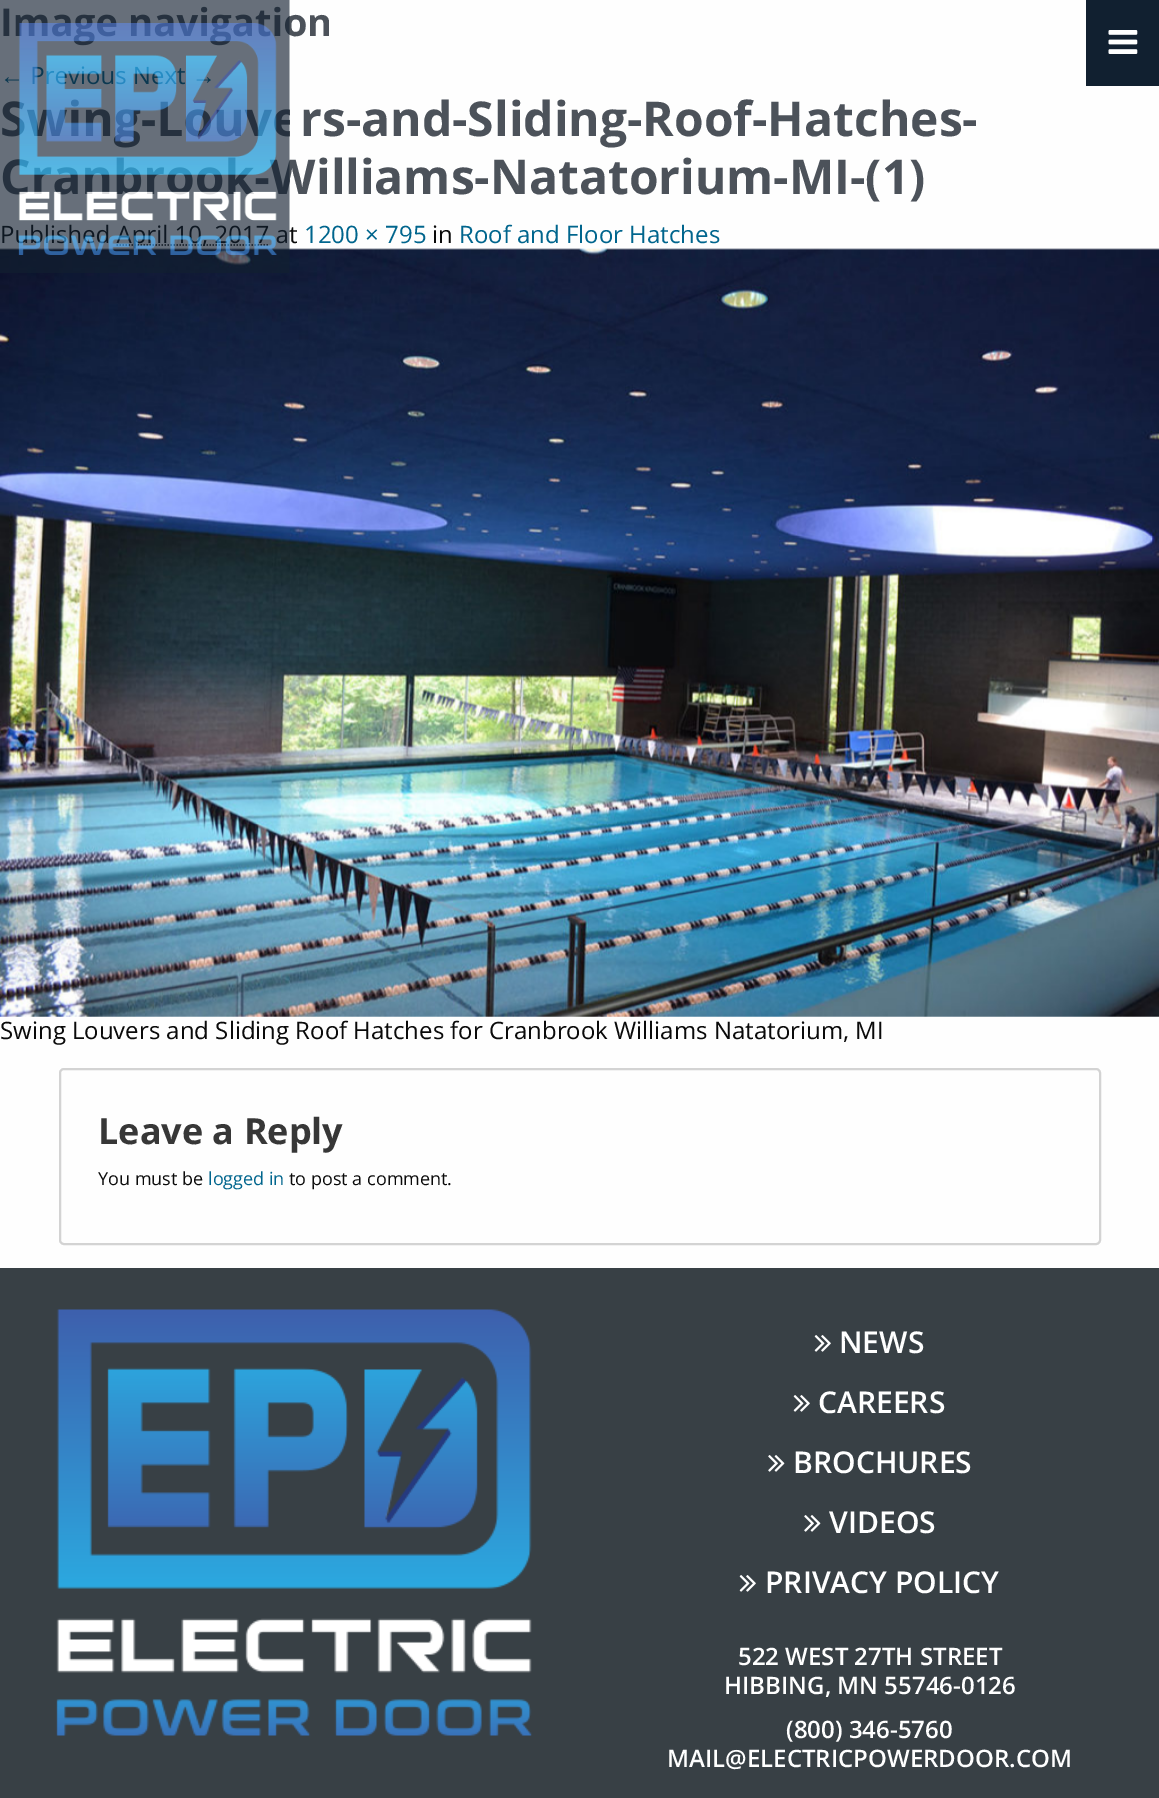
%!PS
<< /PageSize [1159 1798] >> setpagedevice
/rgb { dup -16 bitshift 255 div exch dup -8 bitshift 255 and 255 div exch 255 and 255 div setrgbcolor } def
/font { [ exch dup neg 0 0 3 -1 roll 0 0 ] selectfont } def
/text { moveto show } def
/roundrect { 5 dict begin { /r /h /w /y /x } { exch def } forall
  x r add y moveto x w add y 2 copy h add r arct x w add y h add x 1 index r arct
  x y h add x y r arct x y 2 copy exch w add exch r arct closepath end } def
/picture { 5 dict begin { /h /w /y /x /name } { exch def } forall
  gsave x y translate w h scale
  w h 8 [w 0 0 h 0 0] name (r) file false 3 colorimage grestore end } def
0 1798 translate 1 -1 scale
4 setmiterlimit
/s1 { /OpenSans-Bold 38 font 16#4C525A rgb } def
/s2 { /LiberationSans-Regular 24 font 16#00658D rgb } def
/s3 { /OpenSans-Regular 24 font 16#00658D rgb } def
/s4 { /OpenSans-Bold 48 font 16#4C525A rgb } def
/s5 { /OpenSans-Regular 24 font 16#0A0A0A rgb } def
/s6 { /OpenSans-Bold 36 font 16#373737 rgb } def
/s7 { /OpenSans-Regular 18 font 16#0A0A0A rgb } def
/s8 { /OpenSans-Regular 18 font 16#00658D rgb } def
/s9 { /OpenSans-SemiBold 30 font 16#FFFFFF rgb } def
/s10 { /OpenSans-SemiBold 24 font 16#FFFFFF rgb } def
16#FEFEFE rgb
0 0 1159 1798 rectfill
s1
(I) 0 36 text
(ion) 272 36 text
s2
(←) 0 84 text
s3
(u) 100 84 text
(t) 177 84 text
s4
(-) 141 136 text
(-Williams-Natatorium-MI-\(1\)) 254 194 text
s5
(Published) 0 243 text
1.5 setlinewidth
[1.5 1.5] 0 setdash
116.5 245 moveto 269.5 245 lineto stroke
(April 10, 2017 at) 117 243 text
(pic3.raw) 0 248 1159 769 picture
(pic1.raw) 0 0 290 273 picture
16#112030 rgb
1086 0 73 86 rectfill
(pic2.raw) 1108 30 30 24 picture
s4
(rs-and-Sliding-Roof-Hatches-) 300 136 text
s3
(1200 × 795) 304 243 text
s5
(in) 432 243 text
s3
(Roof and Floor Hatches) 459 243 text
s5
(Swing Louvers and Sliding Roof Hatches for Cranbrook Williams Natatorium, MI) 0 1039 text
16#D3D3D3 rgb
2 setlinewidth
[] 0 setdash
60 1069 1040 175 4 roundrect stroke
s6
(Leave a Reply) 98 1144 text
s7
(You must be) 98 1185 text
s8
(logged in) 208 1185 text
s7
(to post a comment.) 289 1185 text
16#384045 rgb
0 1268 1159 530 rectfill
(pic4.raw) 56 1309 476 427 picture
(pic5.raw) 814 1335 17 17 picture
s9
(NEWS) 839 1353 text
(pic5.raw) 793 1395 17 17 picture
(CAREERS) 818 1413 text
(pic6.raw) 768 1455 17 17 picture
(BROCHURES) 793 1473 text
(pic6.raw) 804 1515 17 17 picture
(VIDEOS) 829 1533 text
(pic5.raw) 739 1575 17 17 picture
(PRIVACY POLICY) 765 1593 text
s10
(522 WEST 27TH STREET) 738 1665 text
(HIBBING, MN 55746-0126) 724 1694 text
(\(800\) 346-5760) 786 1738 text
(MAIL@ELECTRICPOWERDOOR.COM) 667 1767 text
showpage
